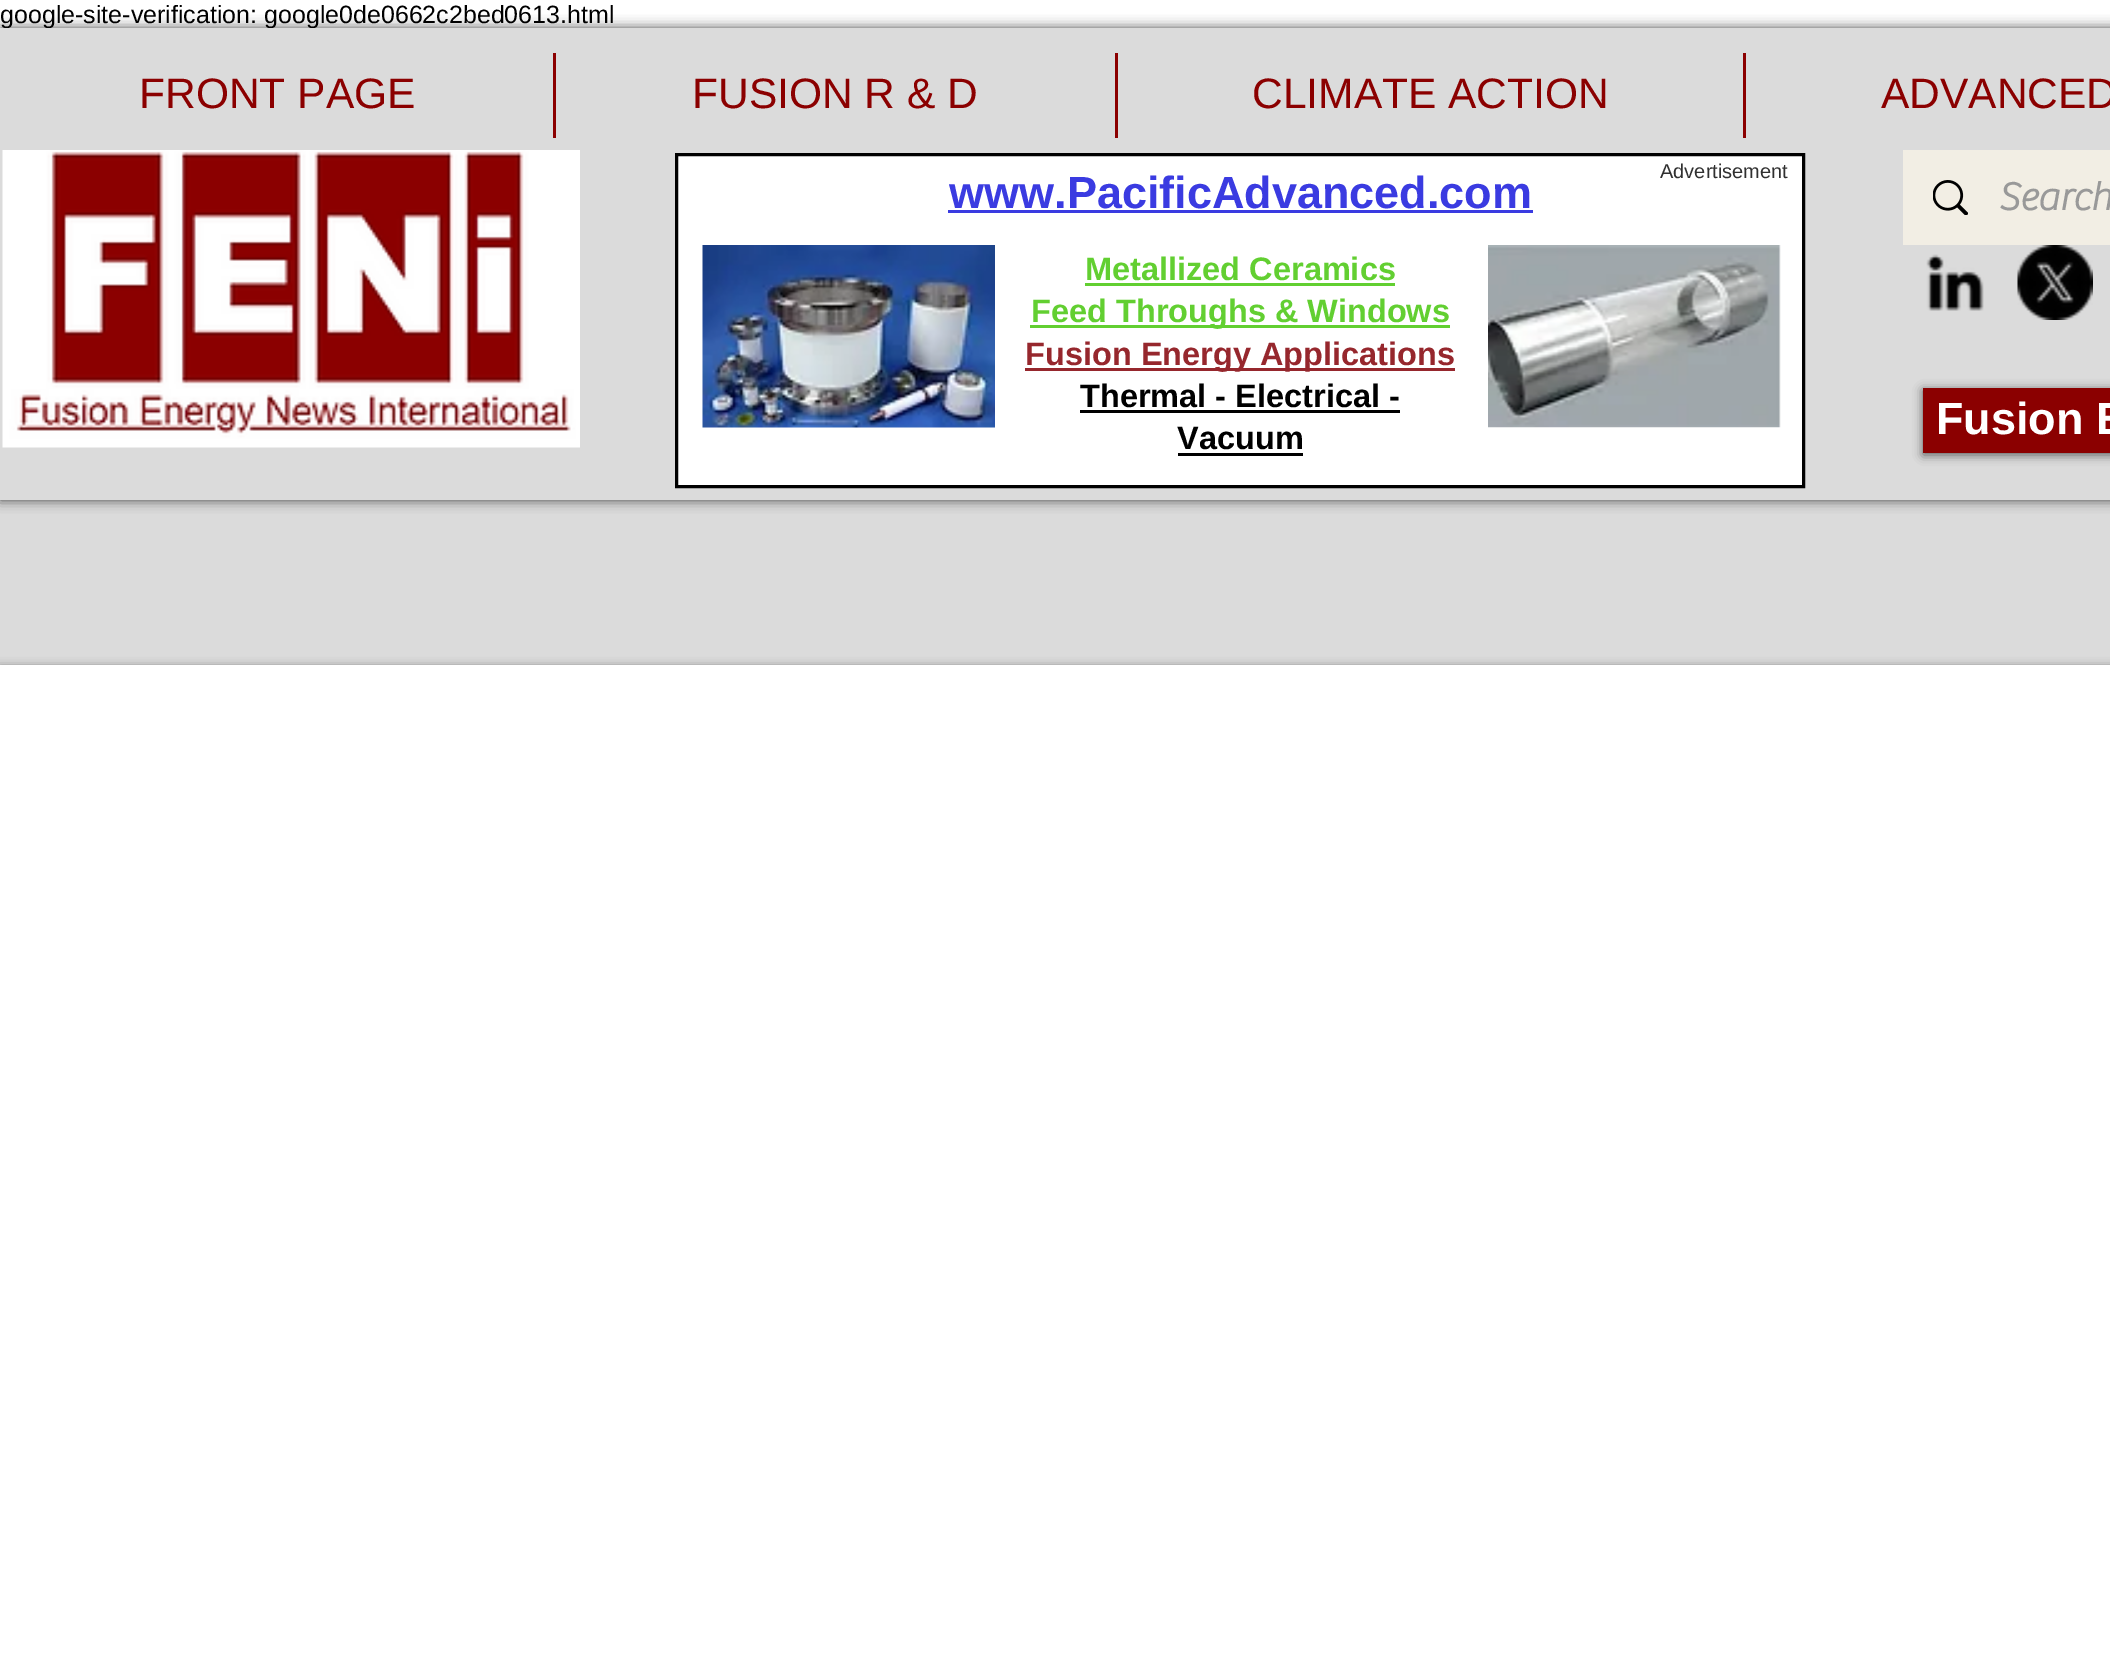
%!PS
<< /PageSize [2110 1656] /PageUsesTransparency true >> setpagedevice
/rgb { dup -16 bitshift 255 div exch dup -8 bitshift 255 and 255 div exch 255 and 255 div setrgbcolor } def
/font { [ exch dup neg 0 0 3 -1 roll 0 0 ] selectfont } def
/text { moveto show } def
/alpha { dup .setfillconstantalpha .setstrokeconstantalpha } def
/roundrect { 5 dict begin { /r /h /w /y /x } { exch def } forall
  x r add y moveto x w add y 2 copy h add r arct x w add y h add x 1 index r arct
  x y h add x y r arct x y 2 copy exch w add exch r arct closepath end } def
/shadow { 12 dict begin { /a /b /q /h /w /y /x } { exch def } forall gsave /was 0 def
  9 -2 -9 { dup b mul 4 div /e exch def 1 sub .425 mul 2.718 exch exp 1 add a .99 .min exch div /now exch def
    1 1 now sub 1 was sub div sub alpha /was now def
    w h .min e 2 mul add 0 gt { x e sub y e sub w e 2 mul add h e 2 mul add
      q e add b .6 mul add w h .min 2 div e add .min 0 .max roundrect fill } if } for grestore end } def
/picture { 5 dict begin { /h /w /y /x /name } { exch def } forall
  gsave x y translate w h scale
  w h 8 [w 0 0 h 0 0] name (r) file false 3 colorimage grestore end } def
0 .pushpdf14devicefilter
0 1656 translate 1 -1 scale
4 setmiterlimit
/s1 { /LiberationSans-Regular 25 font 16#000000 rgb } def
/s2 { /LiberationSans-Regular 42.5 font 16#8B0000 rgb } def
/s3 { /LiberationSans-Regular 20 font 16#303030 rgb } def
/s4 { /LiberationSans-Bold 45 font 16#3A3BE1 rgb } def
/s5 { /LiberationSans-Bold 32.5 font 16#62CF31 rgb } def
/s6 { /LiberationSans-Bold 32.5 font 16#96272D rgb } def
/s7 { /LiberationSans-Bold 32.5 font 16#000000 rgb } def
/s8 { /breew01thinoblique-Bold 40 font 16#999999 rgb } def
/s9 { /LiberationSans-Bold 45 font 16#FFFFFF rgb } def
16#FFFFFF rgb
0 0 2110 1656 rectfill
s1
(google-site-verification: google0de0662c2bed0613.html) 0 23 text
16#DBDBDB rgb
0 500 2110 165 rectfill
16#000000 rgb
0 28 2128 472 0 6 0.7 shadow
16#DBDBDB rgb
0 28 2110 472 rectfill
s2
(FRONT PAGE) 139 108 text
553 53 3 85 rectfill
(FUSION R & D) 692 108 text
1115 53 3 85 rectfill
(CLIMATE ACTION) 1252 108 text
1743 53 3 85 rectfill
(ADVANCED) 1881 108 text
(pic1.raw) 2 150 578 298 picture
16#FFFFFF rgb
676.5 154.5 moveto 1803.5 154.5 lineto 1803.5 486.5 lineto 676.5 486.5 lineto closepath gsave fill grestore
16#000000 rgb
3 setlinewidth
stroke
s3
(Advertisement) 1660 178 text
s4
(www.PacificAdvanced.com) 949 208 text
948 210 585 3 rectfill
(pic2.raw) 702 245 293 183 picture
s5
(Metallized Ceramics) 1085 280 text
1085 283 310 3 rectfill
1030 325 420 3 rectfill
(Feed Throughs & Windows) 1031 322 text
16#96272D rgb
1025 368 430 3 rectfill
(Fusion Energy Applications) 1025 365 text
s7
(Thermal - Electrical -) 1080 407 text
1080 410 320 3 rectfill
(Vacuum) 1177 449 text
1178 453 125 3 rectfill
(pic3.raw) 1488 245 293 183 picture
16#F2EEE4 rgb
1903 150 207 95 rectfill
(pic4.raw) 1933 180 35 35 picture
s8
(Search) 1998 210 text
(pic5.raw) 1926 254 58 57 picture
(pic6.raw) 2017 245 76 75 picture
16#000000 rgb
1923 390 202 65 0 5 0.6 shadow
16#8B0000 rgb
1923 388 187 65 rectfill
s9
(Fusion E) 1936 434 text
16#000000 rgb
0 668 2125 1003 0 5 0.6 shadow
16#FFFFFF rgb
0 665 2110 991 rectfill
.poppdf14devicefilter showpage
